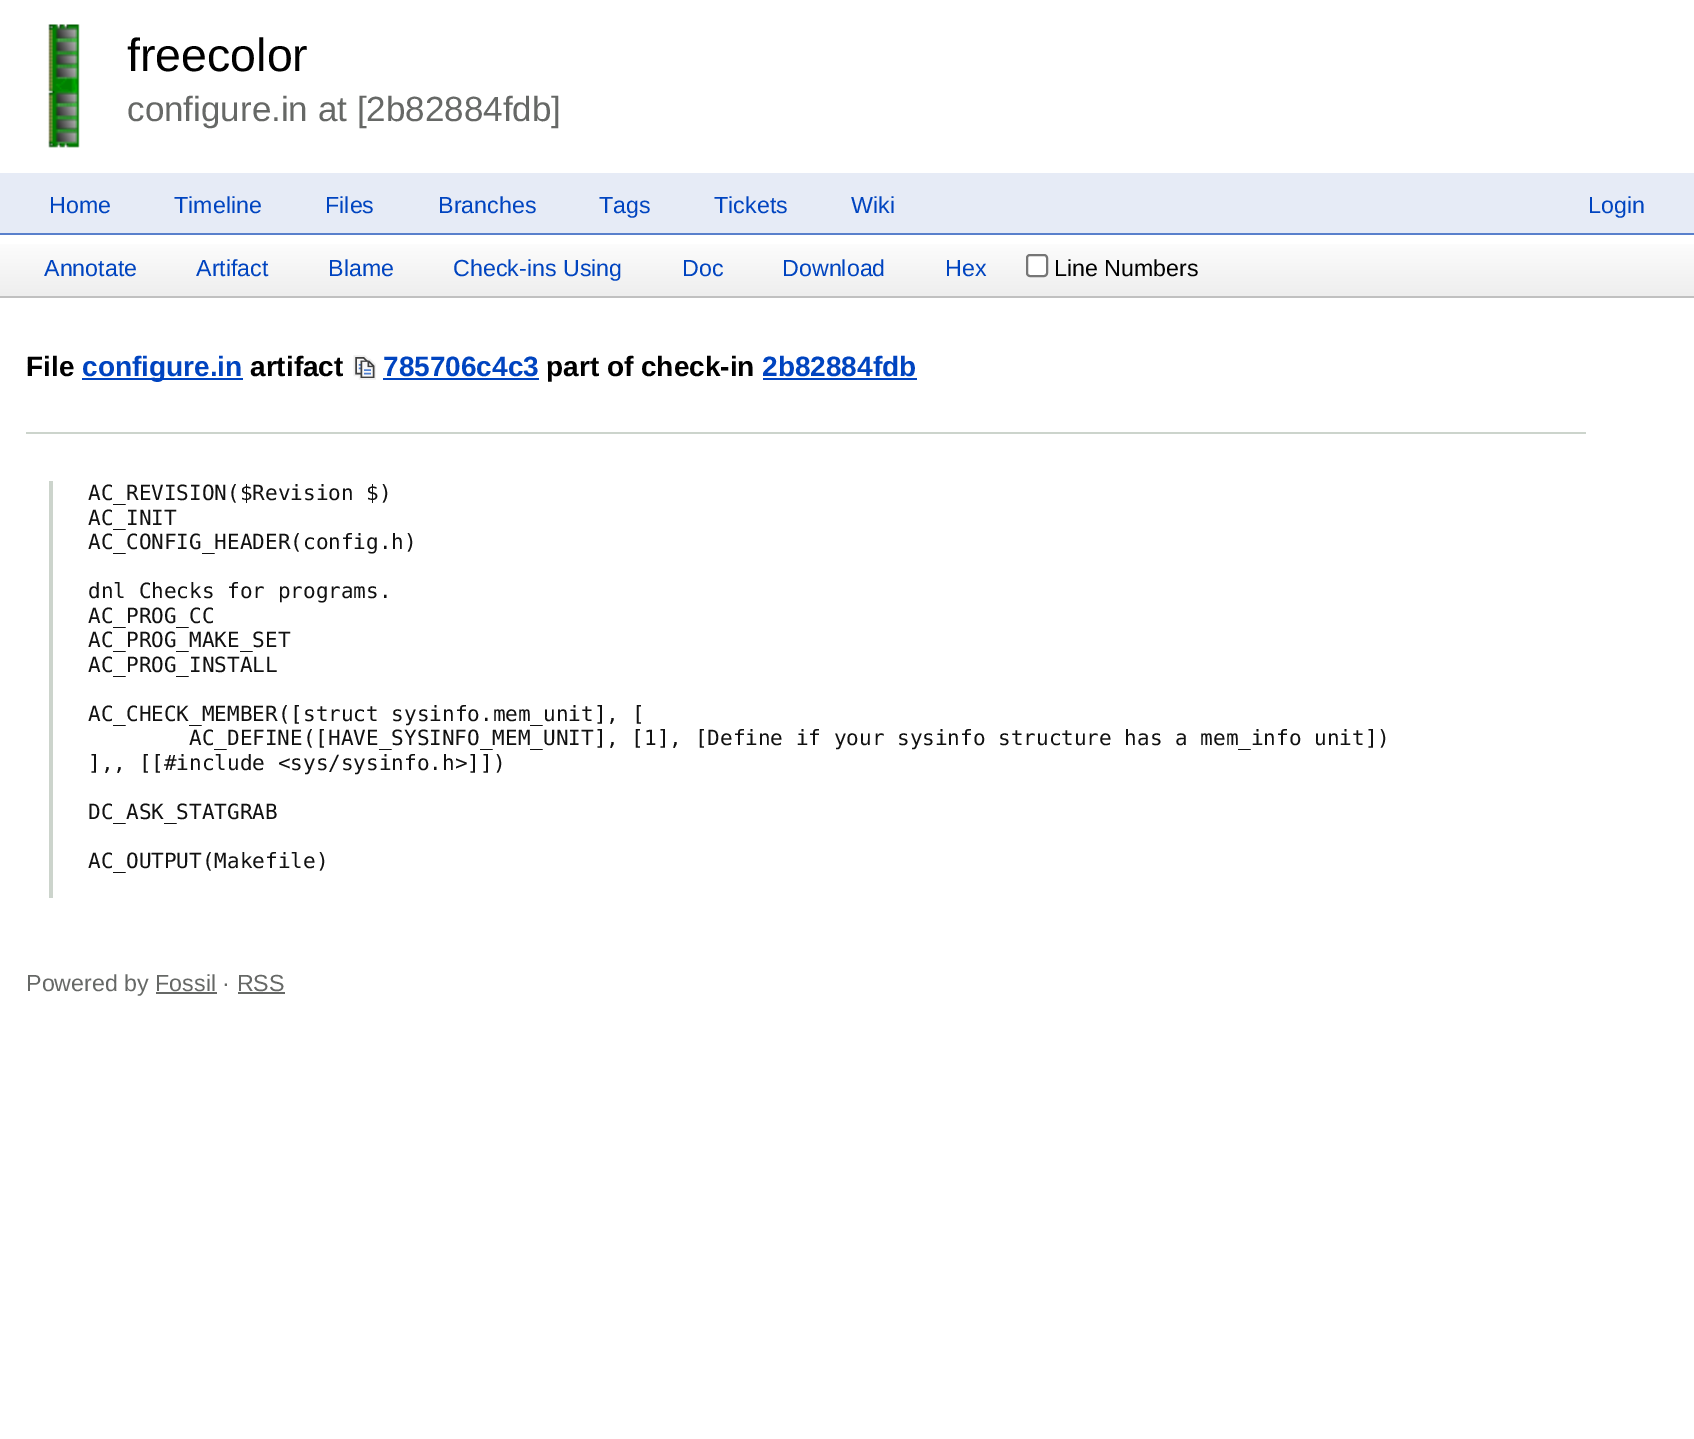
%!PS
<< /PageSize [1694 1439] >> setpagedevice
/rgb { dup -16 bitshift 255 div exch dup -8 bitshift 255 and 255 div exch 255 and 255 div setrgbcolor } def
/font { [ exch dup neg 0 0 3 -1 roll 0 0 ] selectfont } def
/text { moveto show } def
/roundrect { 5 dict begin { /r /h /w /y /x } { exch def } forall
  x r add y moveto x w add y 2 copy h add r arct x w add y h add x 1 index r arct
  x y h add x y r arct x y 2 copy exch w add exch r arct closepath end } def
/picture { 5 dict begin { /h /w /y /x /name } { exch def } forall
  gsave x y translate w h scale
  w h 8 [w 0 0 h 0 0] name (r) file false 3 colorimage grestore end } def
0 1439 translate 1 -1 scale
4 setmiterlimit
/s1 { /LiberationSans-Regular 46.5 font 16#000000 rgb } def
/s2 { /LiberationSans-Regular 35 font 16#666866 rgb } def
/s3 { /LiberationSans-Regular 23.25 font 16#0044C0 rgb } def
/s4 { /LiberationSans-Regular 23.25 font 16#000000 rgb } def
/s5 { /LiberationSans-Bold 28 font 16#000000 rgb } def
/s6 { /LiberationSans-Bold 28 font 16#0044C0 rgb } def
/s7 { /DejaVuSansMono-Regular 21 font 16#111111 rgb } def
/s8 { /LiberationSans-Regular 23.25 font 16#666866 rgb } def
16#FFFFFF rgb
0 0 1694 1439 rectfill
(pic1.raw) 48 24 32 124 picture
s1
(freecolor) 127 71 text
s2
(configure.in at [2b82884fdb]) 127 121 text
16#E6EBF6 rgb
0 173 1694 60 rectfill
16#5980CC rgb
0 233 1694 2 rectfill
s3
(Home) 49 213 text
(Timeline) 174 213 text
(Files) 325 213 text
(Branches) 438 213 text
(Tags) 599 213 text
(Tickets) 714 213 text
(Wiki) 851 213 text
(Login) 1588 213 text
gsave 0 244 moveto 1694 244 lineto 1694 296 lineto 0 296 lineto closepath clip newpath
<< /ShadingType 2 /ColorSpace /DeviceRGB /Coords [0 296 0 235] /Extend [true true] /Function << /FunctionType 2 /Domain [0 1] /C0 [0.933 0.933 0.933] /C1 [1 1 1] /N 1 >> >> shfill grestore
16#C0C0C0 rgb
0 296 1694 2 rectfill
s3
(Annotate) 44 276 text
(Artifact) 196 276 text
(Blame) 328 276 text
(Check-ins Using) 453 276 text
(Doc) 682 276 text
(Download) 782 276 text
(Hex) 945 276 text
16#FFFFFF rgb
1027 255 20 21 3 roundrect gsave fill grestore
16#767676 rgb
2 setlinewidth
stroke
s4
(Line Numbers) 1054 276 text
s5
(File) 26 376 text
16#0044C0 rgb
82 378 161 2 rectfill
(configure.in) 82 376 text
s5
(artifact) 250 376 text
(pic2.raw) 353 355 23 25 picture
s6
(785706c4c3) 383 376 text
383 378 156 2 rectfill
s5
(part of check-in) 546 376 text
s6
(2b82884fdb) 762 376 text
763 378 154 2 rectfill
16#CCD4CC rgb
26 432 1560 2 rectfill
49 481 4 417 rectfill
s7
(AC_REVISION\($Revision $\)) 88 500 text
(AC_INIT) 88 525 text
(AC_CONFIG_HEADER\(config.h\)) 88 549 text
(dnl Checks for programs.) 88 598 text
(AC_PROG_CC) 88 623 text
(AC_PROG_MAKE_SET) 88 647 text
(AC_PROG_INSTALL) 88 672 text
(AC_CHECK_MEMBER\([struct sysinfo.mem_unit], [) 88 721 text
(AC_DEFINE\([HAVE_SYSINFO_MEM_UNIT], [1], [Define if your sysinfo structure has a mem_info unit]\)) 189 745 text
(],, [[#include <sys/sysinfo.h>]]\)) 88 770 text
(DC_ASK_STATGRAB) 88 819 text
(AC_OUTPUT\(Makefile\)) 88 868 text
s8
(Powered by Fossil · RSS) 26 991 text
156 992 61 2 rectfill
238 992 47 2 rectfill
showpage
